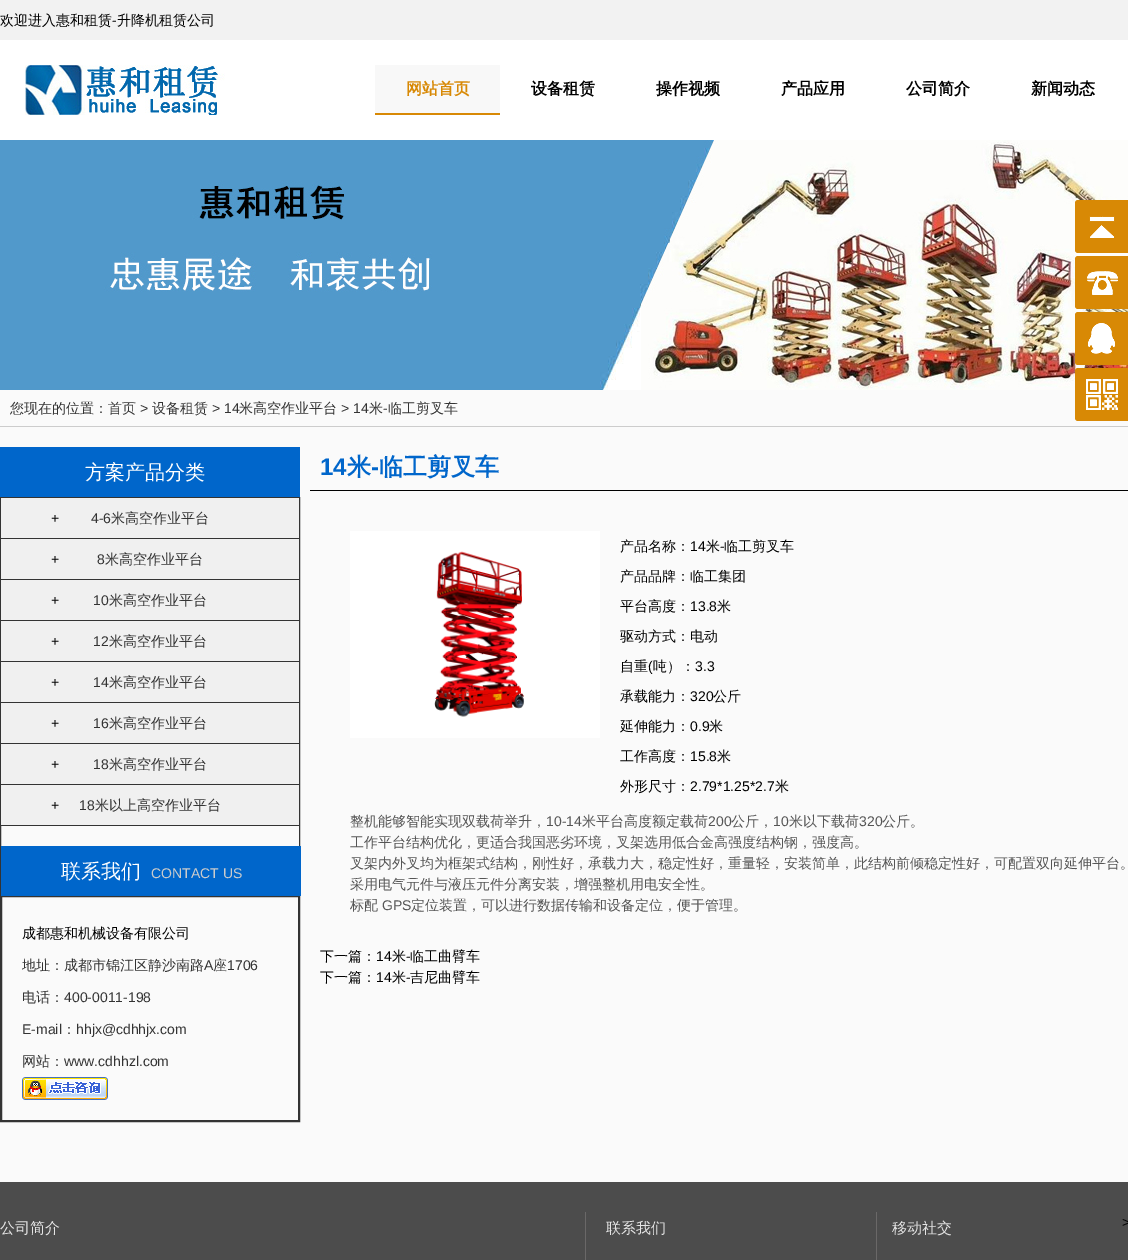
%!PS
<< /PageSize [1128 1260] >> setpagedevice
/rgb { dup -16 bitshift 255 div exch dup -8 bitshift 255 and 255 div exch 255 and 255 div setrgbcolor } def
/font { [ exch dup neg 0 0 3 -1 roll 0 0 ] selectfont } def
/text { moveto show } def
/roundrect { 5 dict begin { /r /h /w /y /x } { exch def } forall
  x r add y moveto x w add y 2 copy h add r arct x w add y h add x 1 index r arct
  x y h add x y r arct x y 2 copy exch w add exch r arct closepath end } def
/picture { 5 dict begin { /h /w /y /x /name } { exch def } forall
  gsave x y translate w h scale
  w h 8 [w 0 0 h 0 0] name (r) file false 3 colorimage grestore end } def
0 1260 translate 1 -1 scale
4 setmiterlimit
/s1 { /WenQuanYiZenHei-Medium 14 font 16#000000 rgb } def
/s2 { /LiberationSans-Regular 14 font 16#000000 rgb } def
/s3 { /WenQuanYiZenHei-Bold 16 font 16#D88905 rgb } def
/s4 { /WenQuanYiZenHei-Bold 16 font 16#000000 rgb } def
/s5 { /WenQuanYiZenHei-Medium 14 font 16#333333 rgb } def
/s6 { /LiberationSans-Regular 14 font 16#333333 rgb } def
/s7 { /WenQuanYiZenHei-Medium 20 font 16#FFFFFF rgb } def
/s8 { /LiberationSans-Regular 14 font 16#CCCCCC rgb } def
/s9 { /LiberationSans-Bold 24 font 16#0066CB rgb } def
/s10 { /WenQuanYiZenHei-Bold 24 font 16#0066CB rgb } def
/s11 { /WenQuanYiZenHei-Medium 14 font 16#555555 rgb } def
/s12 { /LiberationSans-Regular 14 font 16#555555 rgb } def
/s13 { /WenQuanYiZenHei-Medium 15 font 16#E4E4E4 rgb } def
16#FFFFFF rgb
0 0 1128 1260 rectfill
16#F2F2F2 rgb
0 0 1128 40 rectfill
s1
(欢迎进入惠和租赁) 0 25 text
s2
(-) 112 25 text
s1
(升降机租赁公司) 117 25 text
(pic1.raw) 25 65 200 50 picture
16#F8F8F8 rgb
375 65 125 48 rectfill
16#D88905 rgb
375 113 125 2 rectfill
s3
(网站首页) 406 94 text
s4
(设备租赁) 531 94 text
(操作视频) 656 94 text
(产品应用) 781 94 text
(公司简介) 906 94 text
(新闻动态) 1031 94 text
(pic2.raw) 0 140 1128 250 picture
16#FAFAFA rgb
0 390 1128 792 rectfill
16#D88905 rgb
1075 200 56 53 3 roundrect fill
(pic3.raw) 1089 216 26 22 picture
1075 256 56 53 3 roundrect fill
(pic4.raw) 1087 271 31 24 picture
1075 312 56 53 3 roundrect fill
(pic5.raw) 1088 323 27 31 picture
1075 368 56 53 3 roundrect fill
(pic6.raw) 1086 379 32 31 picture
16#CCCCCC rgb
0 426 1128 1 rectfill
s5
(您现在的位置：首页) 10 413 text
s6
(>) 140 413 text
s5
(设备租赁) 152 413 text
s6
(> 14) 212 413 text
s5
(米高空作业平台) 239 413 text
s6
(> 14) 341 413 text
s5
(米) 369 413 text
s6
(-) 383 413 text
s5
(临工剪叉车) 388 413 text
16#0066CB rgb
0 447 300 50 rectfill
s7
(方案产品分类) 85 479 text
16#333333 rgb
0.5 497.5 299 624 rectstroke
16#F0F0F0 rgb
1 498 298 40 rectfill
s2
(+) 51 523 text
16#333333 rgb
1 538 298 1 rectfill
(4-6) 91 523 text
s5
(米高空作业平台) 111 523 text
16#F0F0F0 rgb
1 539 298 40 rectfill
s2
(+) 51 564 text
16#333333 rgb
1 579 298 1 rectfill
(8) 97 564 text
s5
(米高空作业平台) 105 564 text
16#F0F0F0 rgb
1 580 298 40 rectfill
s2
(+) 51 605 text
16#333333 rgb
1 620 298 1 rectfill
(10) 93 605 text
s5
(米高空作业平台) 109 605 text
16#F0F0F0 rgb
1 621 298 40 rectfill
s2
(+) 51 646 text
16#333333 rgb
1 661 298 1 rectfill
(12) 93 646 text
s5
(米高空作业平台) 109 646 text
16#F0F0F0 rgb
1 662 298 40 rectfill
s2
(+) 51 687 text
16#333333 rgb
1 702 298 1 rectfill
(14) 93 687 text
s5
(米高空作业平台) 109 687 text
16#F0F0F0 rgb
1 703 298 40 rectfill
s2
(+) 51 728 text
16#333333 rgb
1 743 298 1 rectfill
(16) 93 728 text
s5
(米高空作业平台) 109 728 text
16#F0F0F0 rgb
1 744 298 40 rectfill
s2
(+) 51 769 text
16#333333 rgb
1 784 298 1 rectfill
(18) 93 769 text
s5
(米高空作业平台) 109 769 text
16#F0F0F0 rgb
1 785 298 40 rectfill
s2
(+) 51 810 text
16#333333 rgb
1 825 298 1 rectfill
(18) 79 810 text
s5
(米以上高空作业平台) 95 810 text
16#0066CB rgb
1 846 300 50 rectfill
s7
(联系我们) 61 878 text
s8
(CONTACT US) 151 878 text
16#333333 rgb
1.5 896.5 297 224 rectstroke
s1
(成都惠和机械设备有限公司) 22 938 text
s5
(地址：成都市锦江区静沙南路) 22 970 text
s6
(A) 204 970 text
s5
(座) 213 970 text
s6
(1706) 227 970 text
s5
(电话：) 22 1002 text
s6
(400-0011-198) 64 1002 text
(E-mail) 22 1034 text
s5
(：) 62 1034 text
s6
(hhjx@cdhhjx.com) 76 1034 text
s5
(网站：) 22 1066 text
s6
(www.cdhhzl.com) 64 1066 text
(pic7.raw) 22 1077 86 23 picture
16#000000 rgb
310 490 818 1 rectfill
s9
(14) 320 475 text
s10
(米) 347 475 text
s9
(-) 371 475 text
s10
(临工剪叉车) 379 475 text
(pic8.raw) 350 531 250 207 picture
s1
(产品名称：) 620 551 text
s2
(14) 690 551 text
s1
(米) 706 551 text
s2
(-) 720 551 text
s1
(临工剪叉车) 724 551 text
(产品品牌：临工集团) 620 581 text
(平台高度：) 620 611 text
s2
(13.8) 690 611 text
s1
(米) 717 611 text
(驱动方式：电动) 620 641 text
(自重) 620 671 text
s2
(\() 648 671 text
s1
(吨）：) 653 671 text
s2
(3.3) 695 671 text
s1
(承载能力：) 620 701 text
s2
(320) 690 701 text
s1
(公斤) 713 701 text
(延伸能力：) 620 731 text
s2
(0.9) 690 731 text
s1
(米) 709 731 text
(工作高度：) 620 761 text
s2
(15.8) 690 761 text
s1
(米) 717 761 text
(外形尺寸：) 620 791 text
s2
(2.79*1.25*2.7) 690 791 text
s1
(米) 775 791 text
s11
(整机能够智能实现双载荷举升，) 350 826 text
s12
(10-14) 546 826 text
s11
(米平台高度额定载荷) 582 826 text
s12
(200) 708 826 text
s11
(公斤，) 731 826 text
s12
(10) 773 826 text
s11
(米以下载荷) 789 826 text
s12
(320) 859 826 text
s11
(公斤。) 882 826 text
(工作平台结构优化，更适合我国恶劣环境，叉架选用低合金高强度结构钢，强度高。) 350 847 text
(叉架内外叉均为框架式结构，刚性好，承载力大，稳定性好，重量轻，安装简单，此结构前倾稳定性好，可配置双向延伸平台。) 350 868 text
(采用电气元件与液压元件分离安装，增强整机用电安全性。) 350 889 text
(标配) 350 910 text
s12
(GPS) 382 910 text
s11
(定位装置，可以进行数据传输和设备定位，便于管理。) 411 910 text
s1
(下一篇：) 320 961 text
s2
(14) 376 961 text
s1
(米) 392 961 text
s2
(-) 406 961 text
s1
(临工曲臂车) 410 961 text
(下一篇：) 320 982 text
s2
(14) 376 982 text
s1
(米) 392 982 text
s2
(-) 406 982 text
s1
(吉尼曲臂车) 410 982 text
16#4C4C4C rgb
0 1182 1128 78 rectfill
16#6A6868 rgb
585 1212 1 48 rectfill
s13
(公司简介) 0 1233 text
16#6A6868 rgb
876 1212 1 48 rectfill
s13
(联系我们) 606 1233 text
(移动社交) 892 1233 text
s2
(>) 1122 1227 text
showpage
